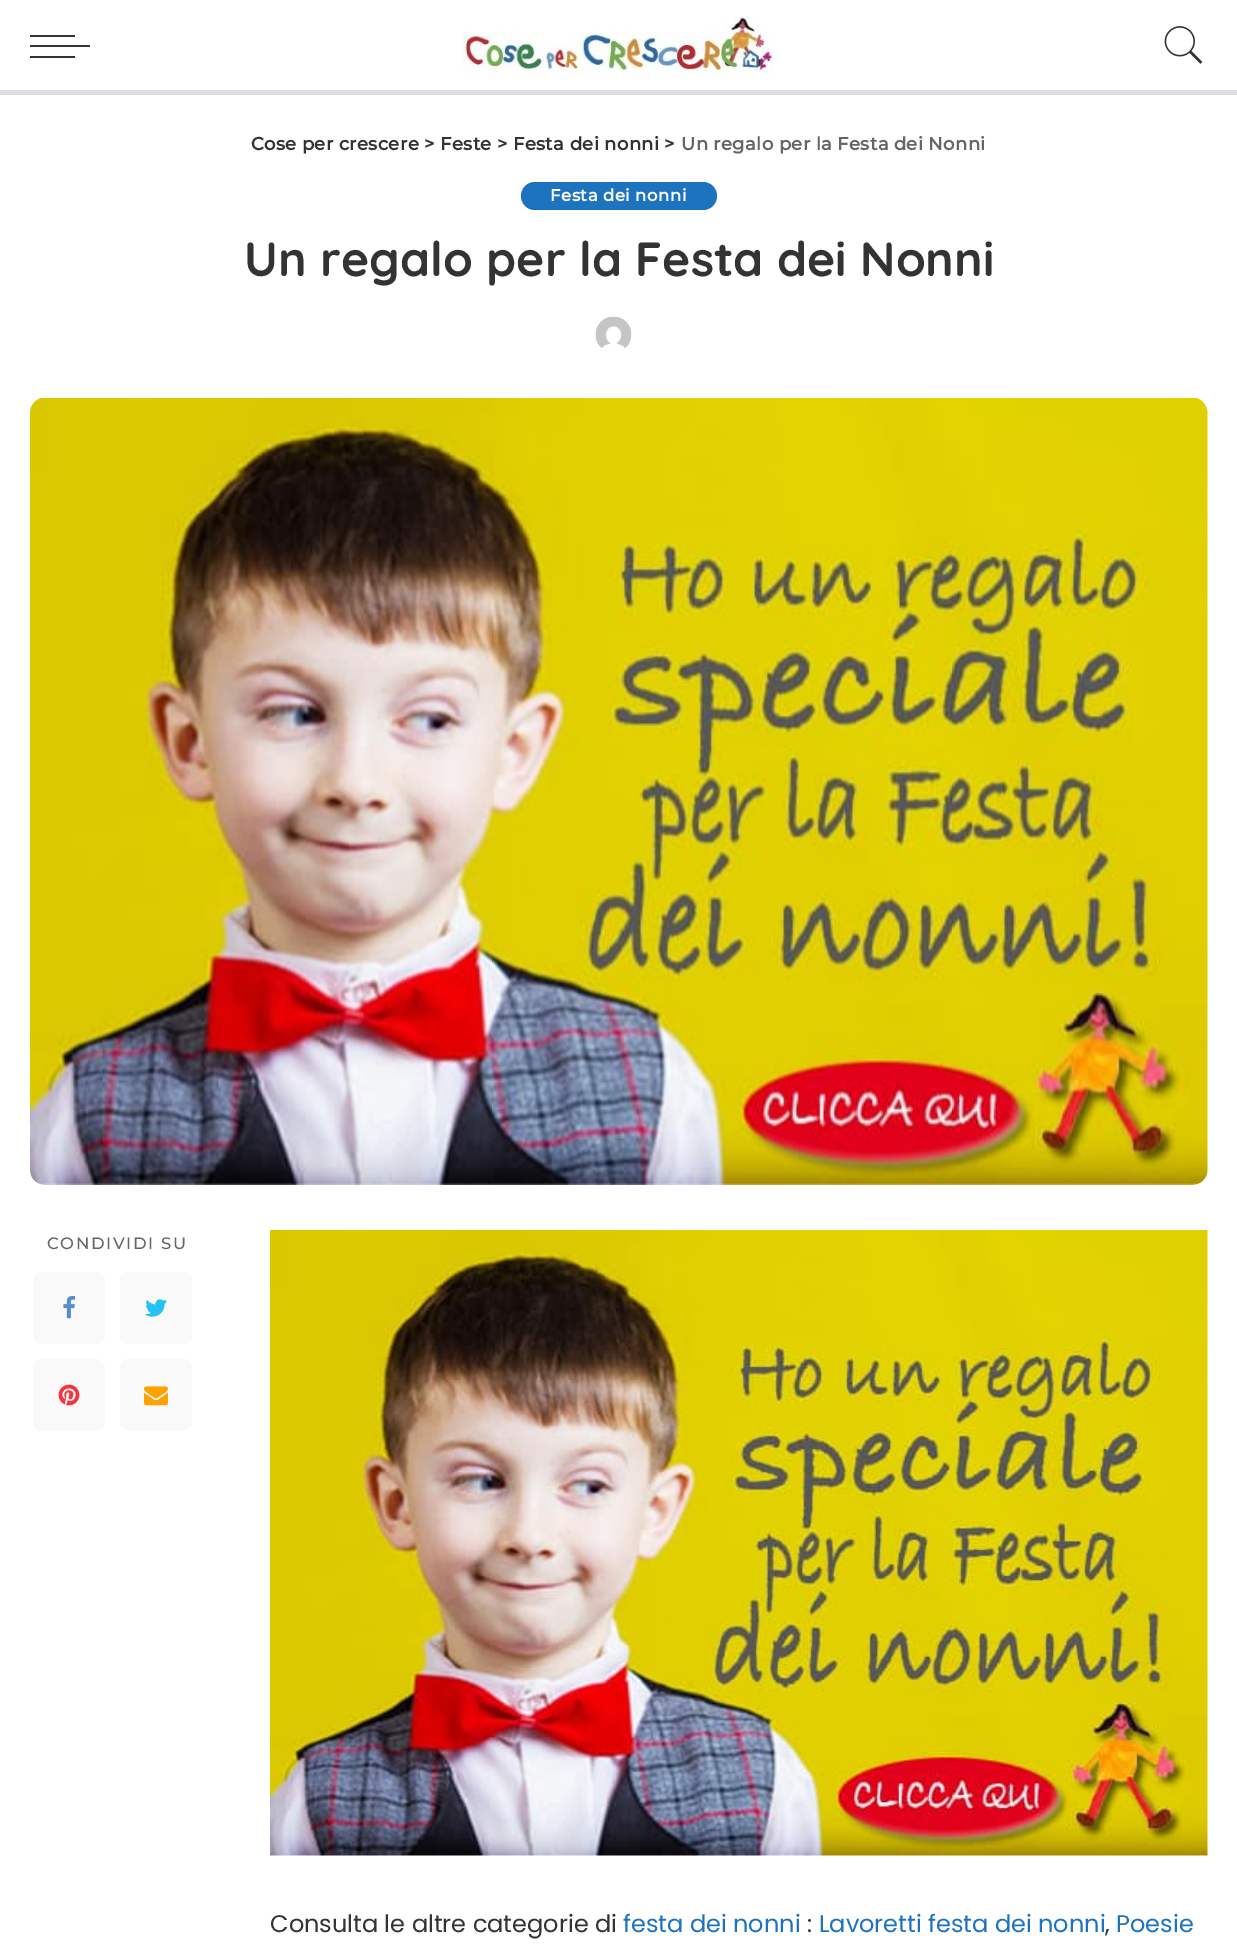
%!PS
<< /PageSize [1237 1958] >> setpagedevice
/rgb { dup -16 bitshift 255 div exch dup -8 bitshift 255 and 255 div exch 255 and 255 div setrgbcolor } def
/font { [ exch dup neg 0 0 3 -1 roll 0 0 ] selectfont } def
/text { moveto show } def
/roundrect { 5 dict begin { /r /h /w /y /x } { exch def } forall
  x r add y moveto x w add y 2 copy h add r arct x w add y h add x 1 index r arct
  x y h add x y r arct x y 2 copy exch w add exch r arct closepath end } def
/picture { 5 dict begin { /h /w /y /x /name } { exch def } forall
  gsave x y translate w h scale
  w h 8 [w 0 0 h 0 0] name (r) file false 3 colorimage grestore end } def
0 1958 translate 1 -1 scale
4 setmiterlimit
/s1 { /Quicksand-Bold 48 font 16#333333 rgb } def
/s2 { /Poppins-Regular 24 font 16#333333 rgb } def
/s3 { /Poppins-Regular 24 font 16#1E73BE rgb } def
16#FFFFFF rgb
0 0 1237 1958 rectfill
16#333333 rgb
30 45 60 2 rectfill
30 35 45 2 rectfill
30 56 45 2 rectfill
(pic1.raw) 462 16 312 58 picture
(pic2.raw) 1164 26 39 38 picture
16#DBDEE9 rgb
0 90 1237 5 rectfill
/Montserrat-Bold 18 font
16#333333 rgb
251 150 moveto 0.35 0 (Cose per crescere > Feste > Festa dei nonni >) ashow
16#666666 rgb
681 150 moveto 0.35 0 (Un regalo per la Festa dei Nonni) ashow
16#1E73BE rgb
521 182 196 28 14 roundrect fill
/Montserrat-Bold 16.5 font
16#FFFFFF rgb
550 201 moveto 0.5 0 (Festa dei nonni) ashow
s1
(Un regalo per la Festa dei Nonni) 244 276 text
(pic3.raw) 595 316 37 32 picture
(pic4.raw) 30 398 1178 787 picture
/Montserrat-Thin 16.5 font
16#666666 rgb
47 1249 moveto 1.6 0 (CONDIVIDI SU) ashow
16#F9F9F9 rgb
33 1272 72 72 9 roundrect fill
(pic5.raw) 63 1296 12 23 picture
120 1272 72 72 9 roundrect fill
(pic6.raw) 145 1299 22 18 picture
33 1359 72 72 9 roundrect fill
(pic7.raw) 58 1384 22 22 picture
120 1359 72 72 9 roundrect fill
(pic8.raw) 144 1386 24 20 picture
(pic9.raw) 270 1230 938 626 picture
s2
(Consulta le altre categorie di) 270 1932 text
s3
(festa dei nonni) 623 1932 text
s2
(:) 807 1932 text
s3
(Lavoretti festa dei nonni) 819 1932 text
s2
(,) 1105 1932 text
s3
(Poesie) 1116 1932 text
showpage
